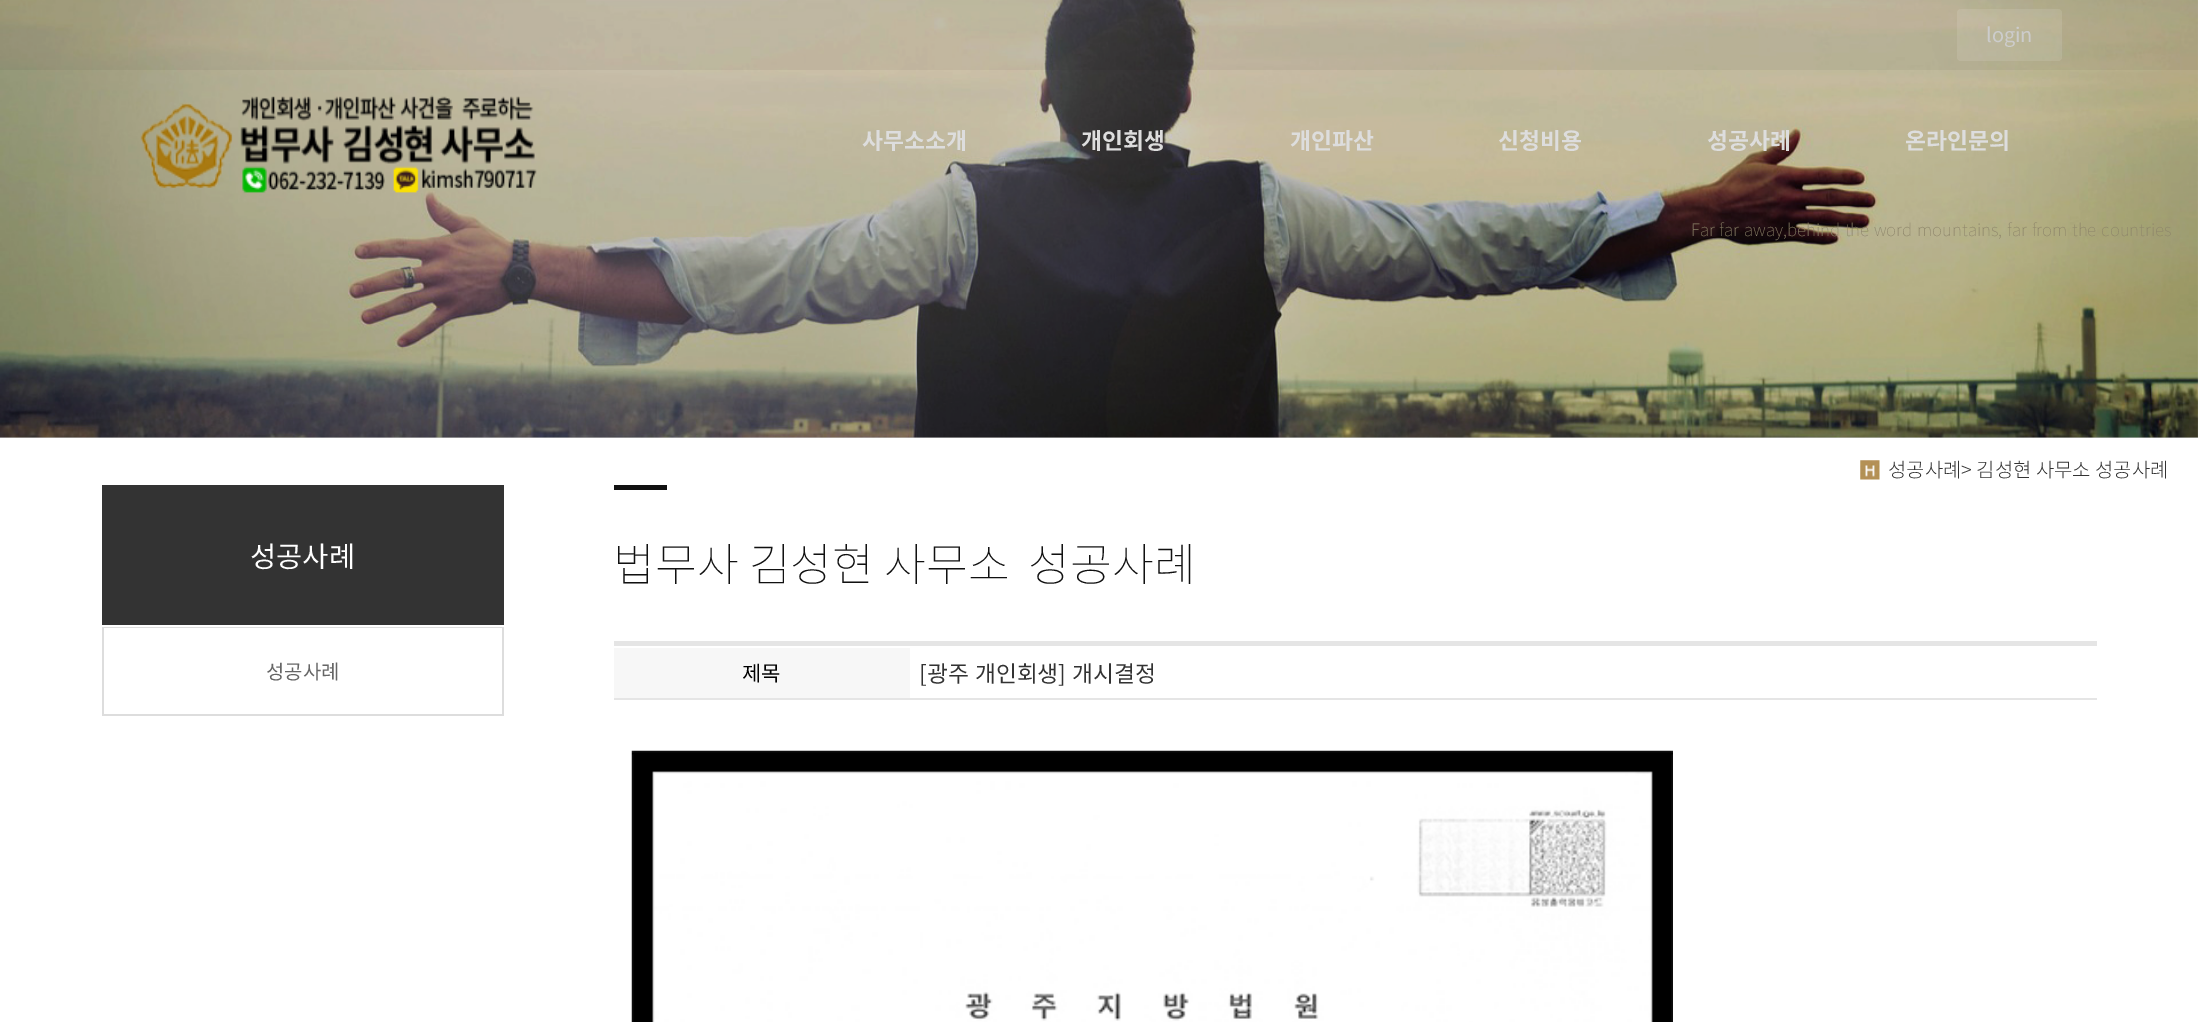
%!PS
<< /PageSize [2198 1022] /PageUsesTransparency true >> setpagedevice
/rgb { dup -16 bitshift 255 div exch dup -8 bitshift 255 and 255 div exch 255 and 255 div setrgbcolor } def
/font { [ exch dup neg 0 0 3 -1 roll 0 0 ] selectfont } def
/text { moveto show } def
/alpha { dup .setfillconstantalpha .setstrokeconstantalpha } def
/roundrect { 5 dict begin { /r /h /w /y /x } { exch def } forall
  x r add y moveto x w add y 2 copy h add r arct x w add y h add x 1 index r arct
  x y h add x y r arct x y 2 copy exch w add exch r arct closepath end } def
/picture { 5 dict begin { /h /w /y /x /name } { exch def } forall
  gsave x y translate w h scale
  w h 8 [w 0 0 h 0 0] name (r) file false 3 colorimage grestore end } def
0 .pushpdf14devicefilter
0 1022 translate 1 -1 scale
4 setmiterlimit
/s1 { /NotoSansKR-Regular 19.9 font 16#CCCCCC rgb } def
/s2 { /NotoSansKR-Bold 22.75 font 16#DDDDDD rgb } def
/s3 { /NotoSansKR-Light 19.9 font 16#333333 rgb } def
/s4 { /NotoSansKR-Regular 28.5 font 16#FFFFFF rgb } def
/s5 { /NotoSansKR-Regular 19.9 font 16#666666 rgb } def
/s6 { /NotoSansKR-Thin 45.5 font 16#111111 rgb } def
/s7 { /NotoSansKR-Regular 21 font 16#000000 rgb } def
16#FFFFFF rgb
0 0 2198 1022 rectfill
16#CCCCCC rgb
0 0 2198 438 rectfill
(pic2.raw) 0 0 2198 438 picture
0.05 alpha
16#000000 rgb
0 0 2198 70 rectfill
0.1 alpha
16#FFFFFF rgb
1957 9 105 52 4 roundrect fill
1 alpha
s1
(login) 1986 42 text
(pic1.raw) 140 95 397 98 picture
s2
(사무소소개) 862 149 text
(개인회생) 1081 149 text
(개인파산) 1290 149 text
(신청비용) 1498 149 text
(성공사례) 1707 149 text
(온라인문의) 1905 149 text
/NotoSansKR-Thin 17.05 font
16#8C8469 rgb
1691 236 moveto 1 0 32 (Far far away,behind the word mountains, far from the countries) widthshow
(pic3.raw) 1860 460 20 20 picture
s3
(성공사례> 김성현 사무소 성공사례) 1888 477 text
102 485 402 140 rectfill
s4
(성공사례) 250 567 text
16#DDDDDD rgb
102 627 402 1 rectfill
502 628 2 88 rectfill
102 714 402 2 rectfill
102 628 2 88 rectfill
s5
(성공사례) 266 679 text
16#111111 rgb
614 485 53 5 rectfill
s6
(법무사 김성현 사무소) 613 581 text
(성공사례) 1028 581 text
16#E5E5E5 rgb
614 641 1483 5 rectfill
16#F7F7F7 rgb
614 648 296 50 rectfill
s7
(제목) 742 681 text
/NotoSansKR-Regular 22.75 font
16#333333 rgb
919 682 moveto 1 0 32 ([광주 개인회생] 개시결정) widthshow
16#E5E5E5 rgb
614 698 1483 2 rectfill
(pic4.raw) 631 750 1042 272 picture
.poppdf14devicefilter showpage
